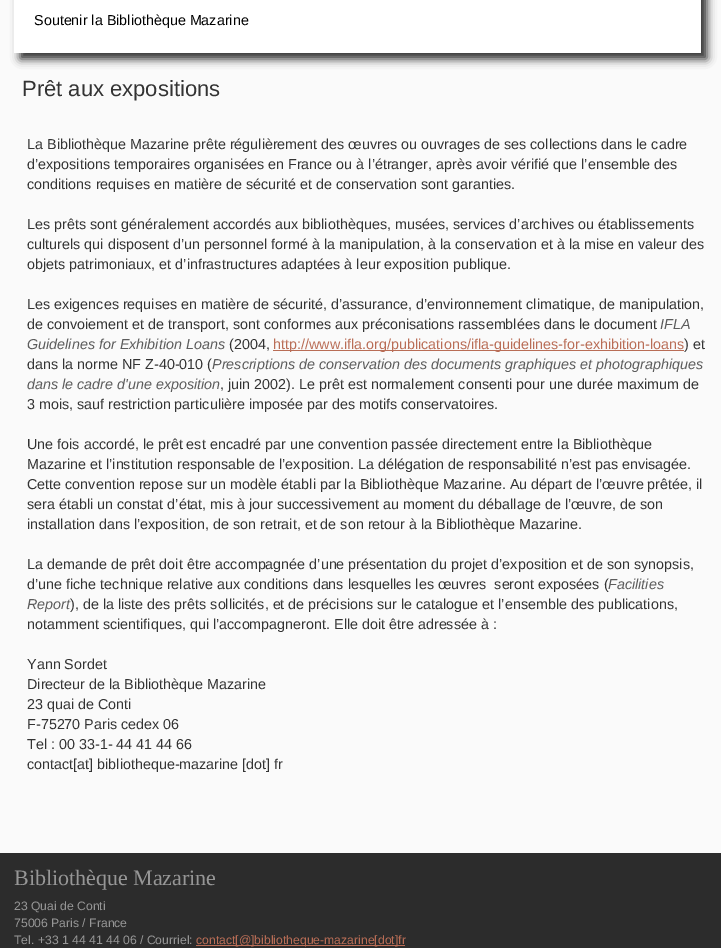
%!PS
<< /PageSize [721 948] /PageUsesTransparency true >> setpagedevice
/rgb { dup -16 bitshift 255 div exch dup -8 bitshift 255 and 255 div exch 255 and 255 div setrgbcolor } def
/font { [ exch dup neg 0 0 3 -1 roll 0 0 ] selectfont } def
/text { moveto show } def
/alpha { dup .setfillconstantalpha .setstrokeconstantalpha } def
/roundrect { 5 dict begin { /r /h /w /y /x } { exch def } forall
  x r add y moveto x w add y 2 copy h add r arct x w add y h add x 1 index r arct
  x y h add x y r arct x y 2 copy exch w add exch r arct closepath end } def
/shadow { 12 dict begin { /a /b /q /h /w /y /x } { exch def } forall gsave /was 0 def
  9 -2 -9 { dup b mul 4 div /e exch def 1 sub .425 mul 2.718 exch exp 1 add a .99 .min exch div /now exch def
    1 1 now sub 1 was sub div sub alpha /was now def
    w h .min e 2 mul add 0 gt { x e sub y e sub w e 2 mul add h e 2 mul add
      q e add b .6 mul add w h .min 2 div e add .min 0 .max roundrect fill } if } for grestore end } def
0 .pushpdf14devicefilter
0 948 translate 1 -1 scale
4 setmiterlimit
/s1 { /LiberationSans-Regular 14.35 font 16#000000 rgb } def
/s2 { /LiberationSans-Regular 22 font 16#333333 rgb } def
/s3 { /LiberationSans-Regular 14.35 font 16#333333 rgb } def
/s4 { /LiberationSans-Italic 14.35 font 16#5C5C5C rgb } def
/s5 { /LiberationSans-Regular 14.35 font 16#B96D56 rgb } def
/s6 { /LiberationSerif-Regular 22 font 16#969696 rgb } def
/s7 { /LiberationSans-Regular 12.2 font 16#969696 rgb } def
/s8 { /LiberationSans-Regular 12.2 font 16#B96D56 rgb } def
16#FAFAFA rgb
0 0 721 948 rectfill
16#2C2C2C rgb
20 -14 687 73 0 4.5 1 shadow
16#FFFFFF rgb
14 0 687 53 rectfill
s1
(Soutenir la Bibliothèque Mazarine) 34 25 text
s2
(Prêt aux expositions) 22 96 text
s3
(La Bibliothèque Mazarine prête régulièrement des œuvres ou ouvrages de ses collections dans le cadre) 27 149 text
(d’expositions temporaires organisées en France ou à l’étranger, après avoir vérifié que l’ensemble des) 27 169 text
(conditions requises en matière de sécurité et de conservation sont garanties.) 27 189 text
(Les prêts sont généralement accordés aux bibliothèques, musées, services d’archives ou établissements) 27 229 text
(culturels qui disposent d’un personnel formé à la manipulation, à la conservation et à la mise en valeur des) 27 249 text
(objets patrimoniaux, et d’infrastructures adaptées à leur exposition publique.) 27 269 text
(Les exigences requises en matière de sécurité, d’assurance, d’environnement climatique, de manipulation,) 27 309 text
(de convoiement et de transport, sont conformes aux préconisations rassemblées dans le document) 27 329 text
s4
(IFLA) 660 329 text
(Guidelines for Exhibition Loans) 27 349 text
s3
(\(2004,) 229 349 text
16#B96D56 rgb
273 350 411 1 rectfill
(http://www.ifla.org/publications/ifla-guidelines-for-exhibition-loans) 273 349 text
s3
(\) et) 684 349 text
(dans la norme NF Z-40-010 \() 27 369 text
s4
(Prescriptions de conservation des documents graphiques et photographiques) 212 369 text
(dans le cadre d'une exposition) 27 389 text
s3
(, juin 2002\). Le prêt est normalement consenti pour une durée maximum de) 220 389 text
(3 mois, sauf restriction particulière imposée par des motifs conservatoires.) 27 409 text
(Une fois accordé, le prêt est encadré par une convention passée directement entre la Bibliothèque) 27 449 text
(Mazarine et l’institution responsable de l’exposition. La délégation de responsabilité n’est pas envisagée.) 27 469 text
(Cette convention repose sur un modèle établi par la Bibliothèque Mazarine. Au départ de l’œuvre prêtée, il) 27 489 text
(sera établi un constat d’état, mis à jour successivement au moment du déballage de l’œuvre, de son) 27 509 text
(installation dans l’exposition, de son retrait, et de son retour à la Bibliothèque Mazarine.) 27 529 text
(La demande de prêt doit être accompagnée d’une présentation du projet d’exposition et de son synopsis,) 27 569 text
(d’une fiche technique relative aux conditions dans lesquelles les œuvres  seront exposées \() 27 589 text
s4
(Facilities) 608 589 text
(Report) 27 609 text
s3
(\), de la liste des prêts sollicités, et de précisions sur le catalogue et l’ensemble des publications,) 70 609 text
(notamment scientifiques, qui l’accompagneront. Elle doit être adressée à :) 27 629 text
(Yann Sordet) 27 669 text
(Directeur de la Bibliothèque Mazarine) 27 689 text
(23 quai de Conti) 27 709 text
(F-75270 Paris cedex 06) 27 729 text
(Tel : 00 33-1- 44 41 44 66) 27 749 text
(contact[at] bibliotheque-mazarine [dot] fr) 27 769 text
16#2C2C2C rgb
0 853 721 95 rectfill
s6
(Bibliothèque Mazarine) 14 885 text
s7
(23 Quai de Conti) 14 910 text
(75006 Paris / France) 14 927 text
(Tel. +33 1 44 41 44 06 / Courriel:) 14 944 text
16#BB6D56 rgb
196 945 209 1 rectfill
s8
(contact[@]bibliotheque-mazarine[dot]fr) 196 944 text
.poppdf14devicefilter showpage
